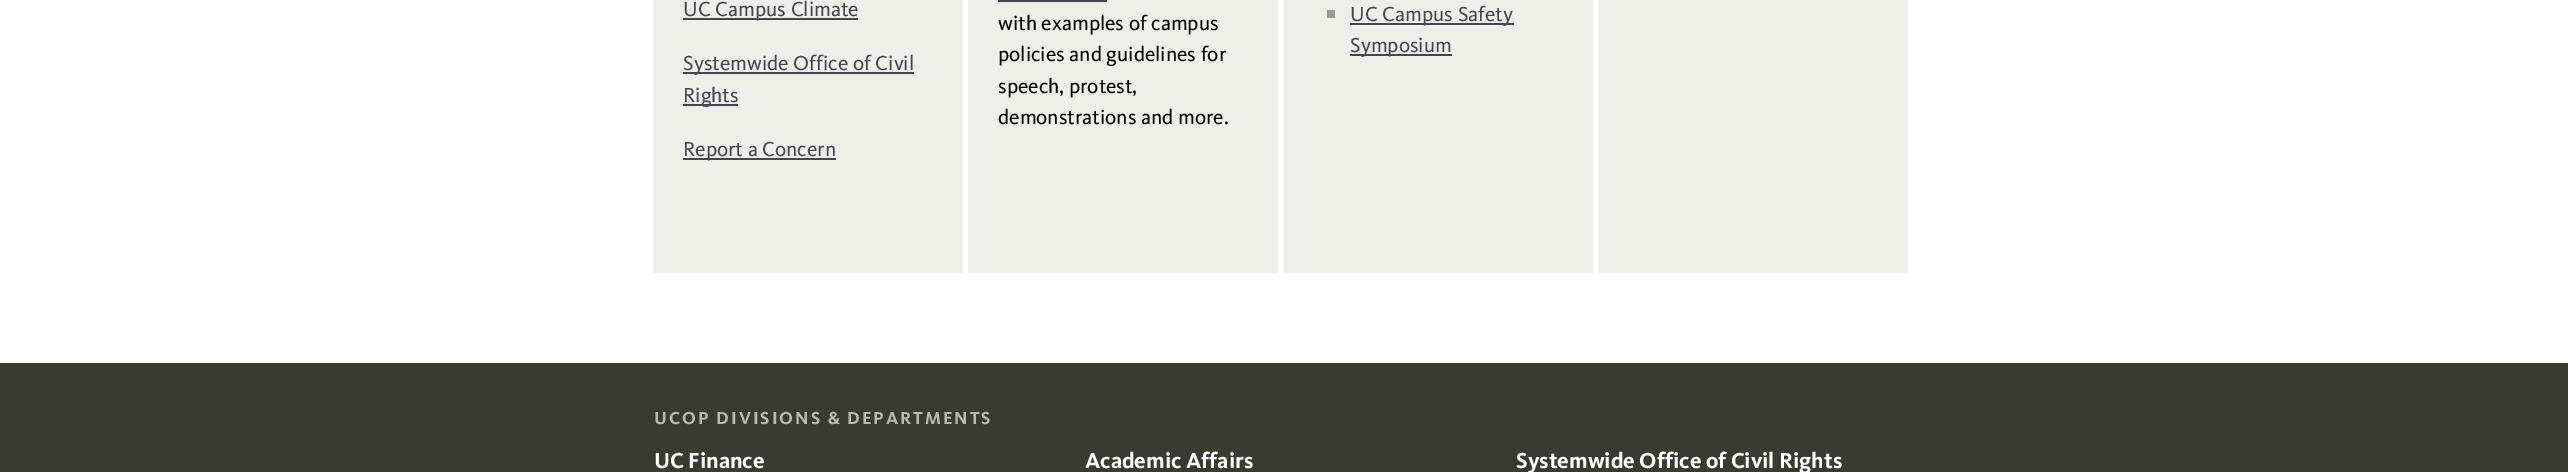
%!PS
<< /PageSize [2568 472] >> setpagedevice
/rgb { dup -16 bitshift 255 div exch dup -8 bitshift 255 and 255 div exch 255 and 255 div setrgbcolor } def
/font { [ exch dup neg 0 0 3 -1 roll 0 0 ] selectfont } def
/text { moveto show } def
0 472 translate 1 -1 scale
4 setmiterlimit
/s1 { /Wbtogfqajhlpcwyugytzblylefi-Regular 21 font 16#444751 rgb } def
/s2 { /Wbtogfqajhlpcwyugytzblylefi-Regular 21 font 16#000000 rgb } def
/s3 { /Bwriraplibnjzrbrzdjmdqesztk-Bold 22.5 font 16#FFFFFF rgb } def
16#FFFFFF rgb
0 0 2568 472 rectfill
16#EEEFE9 rgb
653 0 310 273 rectfill
16#444751 rgb
683 18 175 2 rectfill
s1
(UC Campus Climate) 683 16 text
683 72 231 2 rectfill
(Systemwide Office of Civil) 683 70 text
683 104 55 2 rectfill
(Rights) 683 102 text
683 158 153 2 rectfill
(Report a Concern) 683 156 text
16#EEEFE9 rgb
968 0 310 273 rectfill
16#444751 rgb
998 0 109 2 rectfill
s2
(with examples of campus) 998 30 text
(policies and guidelines for) 998 61 text
(speech, protest,) 998 93 text
(demonstrations and more.) 998 124 text
16#EEEFE9 rgb
1283 0 310 273 rectfill
16#9A9C8E rgb
1327 10 8 8 rectfill
16#444751 rgb
1350 23 164 2 rectfill
(UC Campus Safety) 1350 21 text
1350 54 102 2 rectfill
(Symposium) 1350 52 text
16#EEEFE9 rgb
1598 0 310 273 rectfill
16#393B31 rgb
0 363 2568 109 rectfill
/Bwriraplibnjzrbrzdjmdqesztk-Bold 18 font
16#BEB6AF rgb
654 424 moveto 2 0 (UCOP DIVISIONS & DEPARTMENTS) ashow
s3
(UC Finance) 654 468 text
(Academic Affairs) 1085 468 text
(Systemwide Office of Civil Rights) 1516 468 text
showpage
